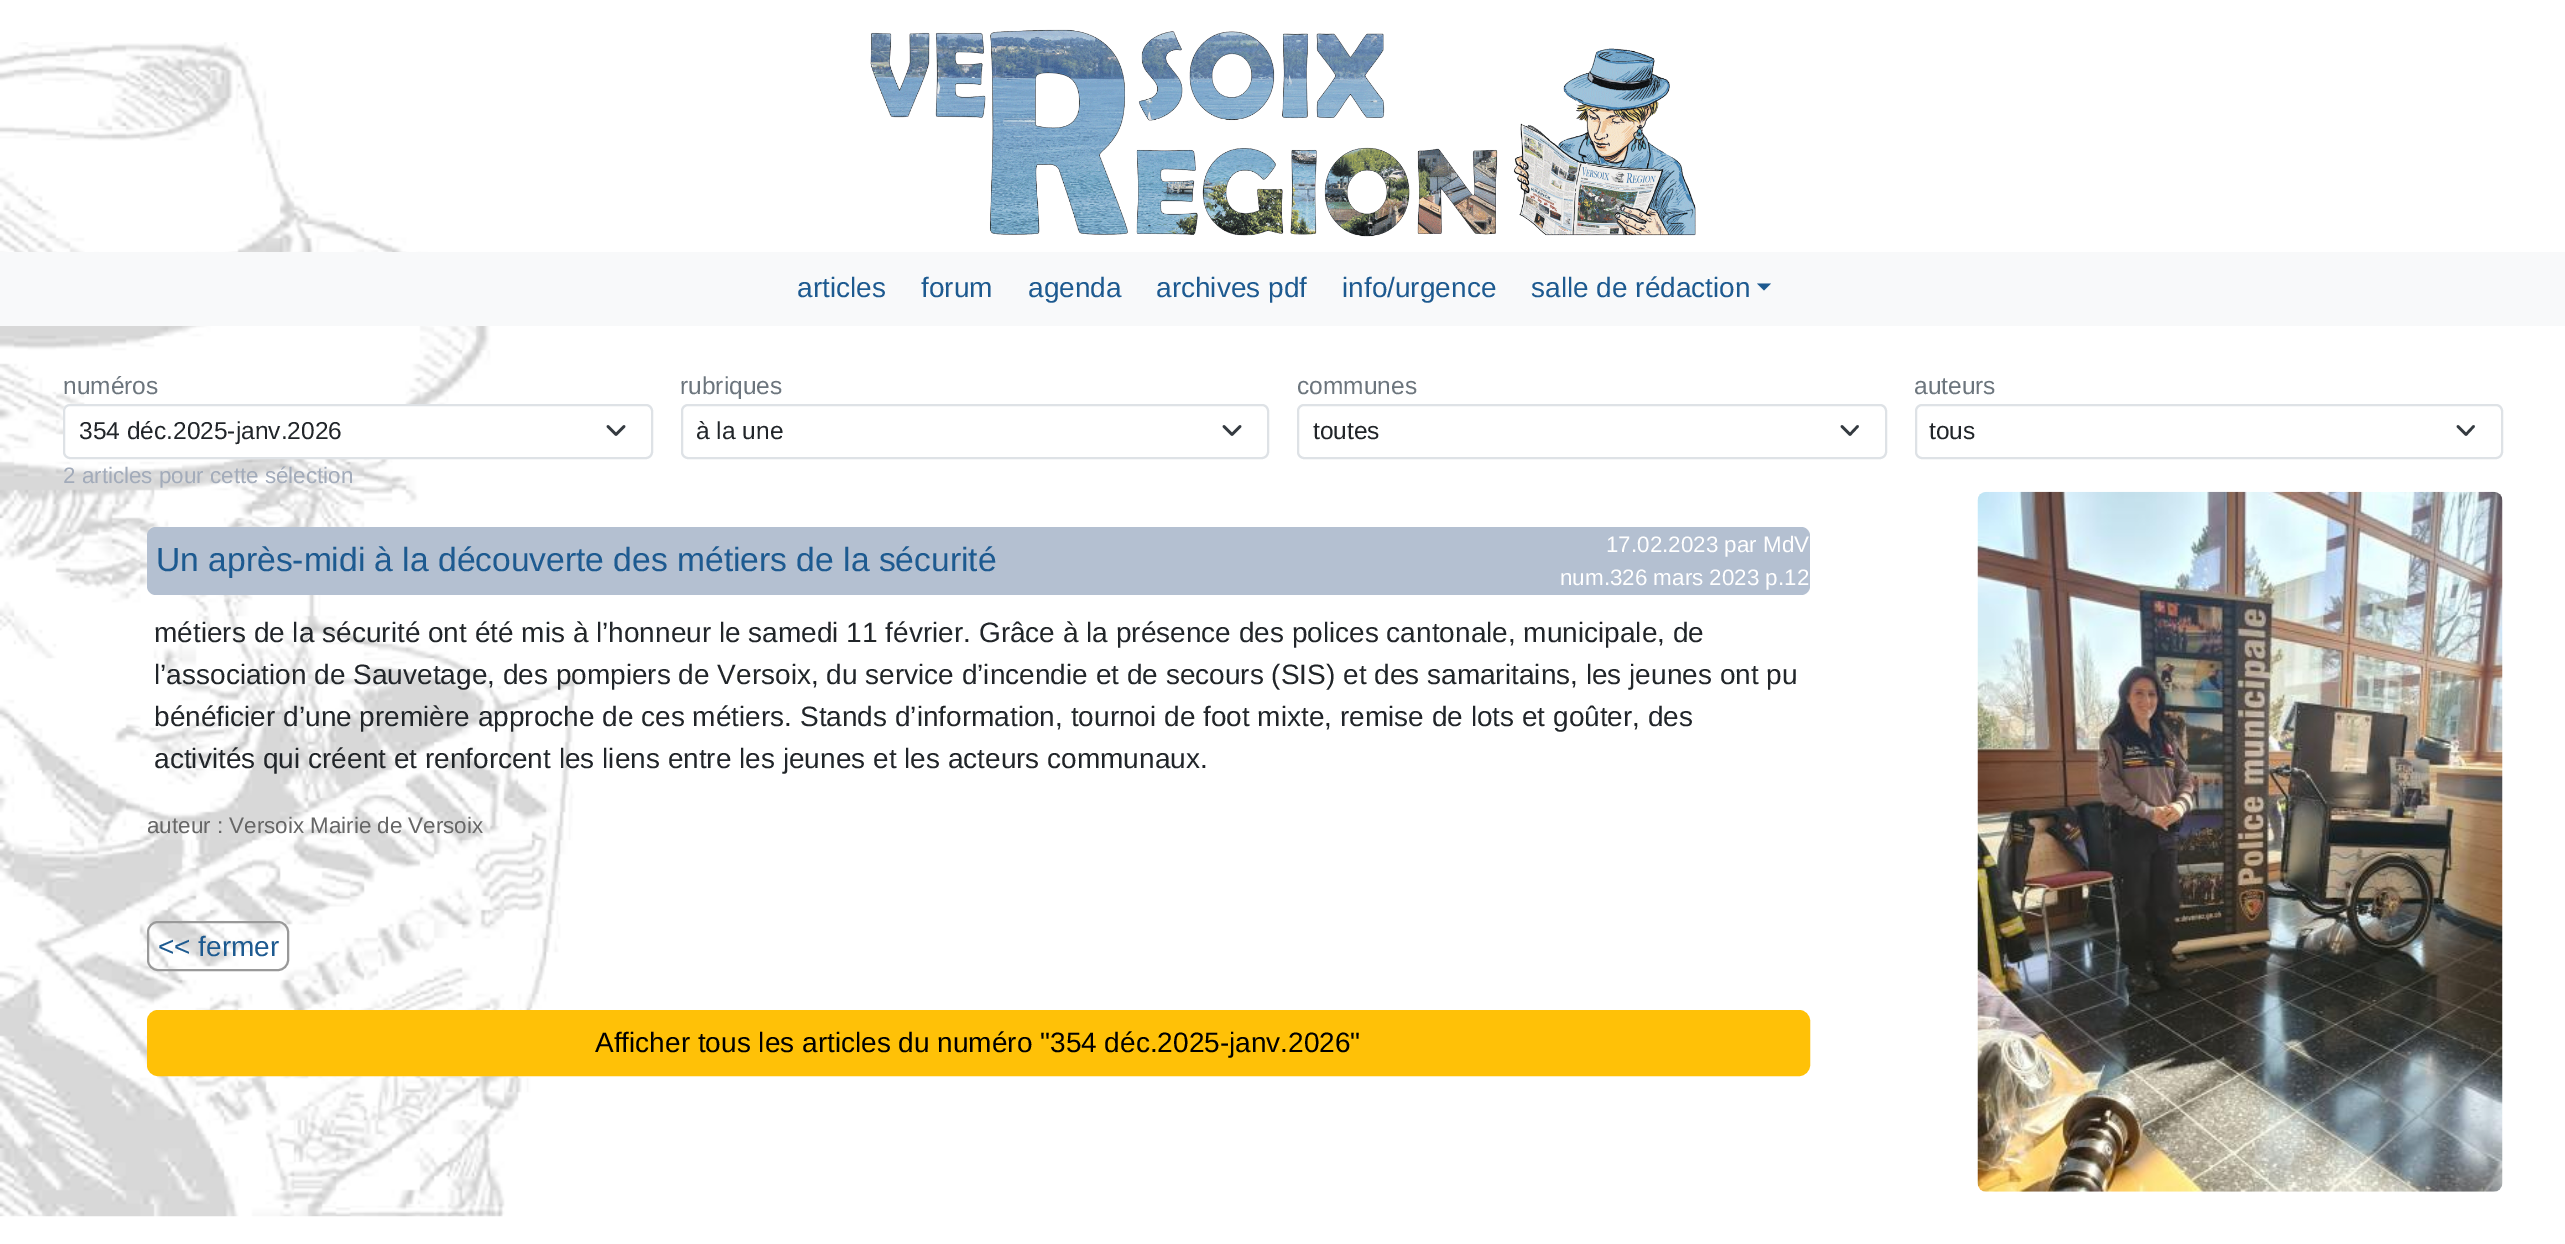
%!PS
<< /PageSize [2565 1244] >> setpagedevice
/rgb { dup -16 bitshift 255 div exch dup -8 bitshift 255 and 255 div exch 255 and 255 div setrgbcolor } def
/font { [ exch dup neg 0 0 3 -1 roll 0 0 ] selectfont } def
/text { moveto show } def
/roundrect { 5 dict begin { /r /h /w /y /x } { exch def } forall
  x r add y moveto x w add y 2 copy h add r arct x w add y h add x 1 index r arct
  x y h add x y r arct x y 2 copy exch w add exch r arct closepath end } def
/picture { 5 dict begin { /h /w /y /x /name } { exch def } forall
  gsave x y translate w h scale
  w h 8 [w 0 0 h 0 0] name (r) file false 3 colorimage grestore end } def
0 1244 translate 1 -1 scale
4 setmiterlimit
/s1 { /LiberationSans-Regular 28 font 16#1D5A90 rgb } def
/s2 { /LiberationSans-Regular 24.5 font 16#6C757D rgb } def
/s3 { /LiberationSans-Regular 24.5 font 16#212529 rgb } def
/s4 { /LiberationSans-Regular 22.4 font 16#A2ABBA rgb } def
/s5 { /LiberationSans-Regular 33.6 font 16#1D5A90 rgb } def
/s6 { /LiberationSans-Regular 22.4 font 16#FFFFFF rgb } def
/s7 { /LiberationSans-Regular 28 font 16#212529 rgb } def
/s8 { /LiberationSans-Regular 22.4 font 16#666666 rgb } def
/s9 { /LiberationSans-Regular 28 font 16#000000 rgb } def
16#FFFFFF rgb
0 0 2565 1244 rectfill
(pic1.raw) 0 42 588 1175 picture
(pic2.raw) 870 29 826 208 picture
16#F8F9FA rgb
0 252 2565 74 rectfill
s1
(articles) 797 297 text
(forum) 921 297 text
(agenda) 1028 297 text
(archives pdf) 1156 297 text
(info/urgence) 1342 297 text
(salle de rédaction) 1531 297 text
1757 283.5 moveto 1771 283.5 lineto 1764 290.5 lineto closepath fill
s2
(numéros) 63 394 text
16#FFFFFF rgb
63 404 590 55 7 roundrect fill
16#343A40 rgb
2.6 setlinewidth
1 setlinecap
1 setlinejoin
608 426.5 moveto 616 434.5 lineto 624 426.5 lineto stroke
16#DEE2E6 rgb
2 setlinewidth
0 setlinecap
0 setlinejoin
64 405 588 53 6 roundrect stroke
s3
(354 déc.2025-janv.2026) 79 439 text
s2
(rubriques) 680 394 text
16#343A40 rgb
2.6 setlinewidth
1 setlinecap
1 setlinejoin
1224 426.5 moveto 1232 434.5 lineto 1240 426.5 lineto stroke
16#DEE2E6 rgb
2 setlinewidth
0 setlinecap
0 setlinejoin
682 405 586 53 6 roundrect stroke
gsave
697 413 507 37 rectclip
s3
(à la une) 696 439 text
grestore
s2
(communes) 1297 394 text
16#343A40 rgb
2.6 setlinewidth
1 setlinecap
1 setlinejoin
1842 426.5 moveto 1850 434.5 lineto 1857.5 426.5 lineto stroke
16#DEE2E6 rgb
2 setlinewidth
0 setlinecap
0 setlinejoin
1298 405 588 53 6 roundrect stroke
s3
(toutes) 1313 439 text
s2
(auteurs) 1914 394 text
16#343A40 rgb
2.6 setlinewidth
1 setlinecap
1 setlinejoin
2458 426.5 moveto 2466 434.5 lineto 2473.5 426.5 lineto stroke
16#DEE2E6 rgb
2 setlinewidth
0 setlinecap
0 setlinejoin
1916 405 586 53 6 roundrect stroke
s3
(tous) 1929 439 text
s4
(2 articles pour cette sélection) 63 483 text
16#B4C0D1 rgb
147 527 1663 68 9 roundrect fill
s5
(Un après-midi à la découverte des métiers de la sécurité) 156 571 text
s6
(17.02.2023 par MdV) 1606 552 text
(num.326 mars 2023 p.12) 1560 585 text
s7
(métiers de la sécurité ont été mis à l’honneur le samedi 11 février. Grâce à la présence des polices cantonale, municipale, de) 154 642 text
(l’association de Sauvetage, des pompiers de Versoix, du service d’incendie et de secours \(SIS\) et des samaritains, les jeunes ont pu) 154 684 text
(bénéficier d’une première approche de ces métiers. Stands d’information, tournoi de foot mixte, remise de lots et goûter, des) 154 726 text
(activités qui créent et renforcent les liens entre les jeunes et les acteurs communaux.) 154 768 text
s8
(auteur : Versoix Mairie de Versoix) 147 833 text
16#999999 rgb
148 922 140 48 10 roundrect stroke
s1
(<< fermer) 158 956 text
16#FFC107 rgb
148 1011 1661 64 10 roundrect gsave fill grestore
stroke
s9
(Afficher tous les articles du numéro "354 déc.2025-janv.2026") 595 1052 text
(pic3.raw) 1977 491 526 701 picture
showpage
